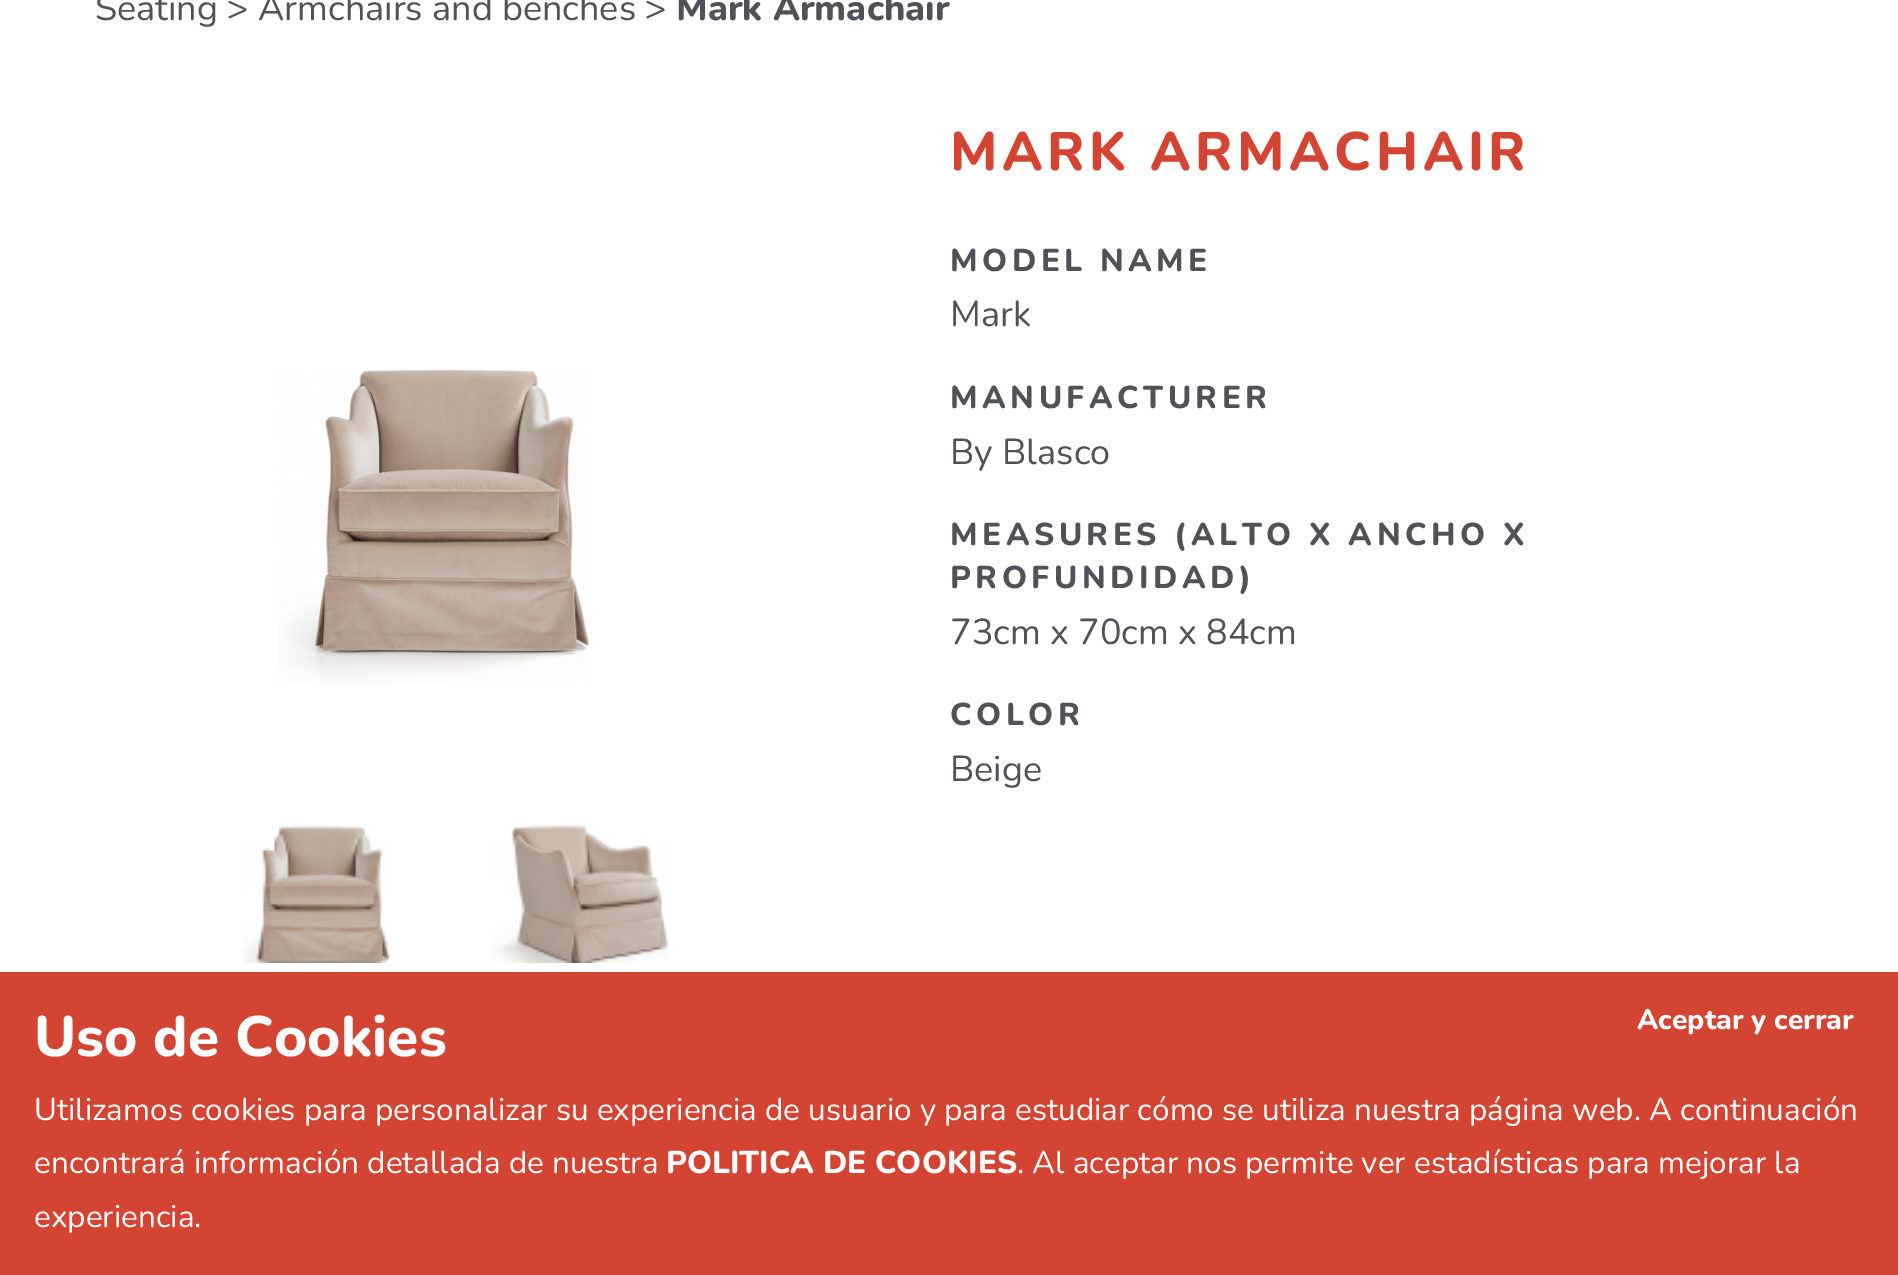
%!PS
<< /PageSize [1898 1275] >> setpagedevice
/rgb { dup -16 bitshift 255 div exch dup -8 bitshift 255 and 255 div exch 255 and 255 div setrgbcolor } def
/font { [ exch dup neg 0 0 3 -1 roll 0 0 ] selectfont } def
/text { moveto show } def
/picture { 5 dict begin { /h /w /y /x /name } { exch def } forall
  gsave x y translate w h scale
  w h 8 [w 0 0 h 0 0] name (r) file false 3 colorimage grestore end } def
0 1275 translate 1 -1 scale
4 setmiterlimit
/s1 { /Nunito-Regular 36 font 16#515258 rgb } def
/s2 { /Nunito-ExtraBold 36 font 16#515258 rgb } def
/s3 { /Nunito-ExtraBold 56.75 font 16#FFFFFF rgb } def
/s4 { /Nunito-ExtraBold 28.25 font 16#FFFFFF rgb } def
/s5 { /Nunito-Regular 31.5 font 16#FFFFFF rgb } def
/s6 { /Nunito-ExtraBold 31.5 font 16#FFFFFF rgb } def
16#FFFFFF rgb
0 0 1898 1275 rectfill
s1
(Seating > Armchairs and benches >) 95 20 text
s2
(Mark Armachair) 676 20 text
/Nunito-ExtraBold 54 font
16#D34432 rgb
950 170 moveto 4.5 0 (MARK ARMACHAIR) ashow
(pic1.raw) 278 369 311 317 picture
(pic2.raw) 241 825 149 138 picture
(pic3.raw) 490 825 179 138 picture
/Nunito-ExtraBold 31.5 font
16#515258 rgb
950 271 moveto 4.5 0 (MODEL NAME) ashow
s1
(Mark) 950 326 text
/Nunito-ExtraBold 31.5 font
950 408 moveto 4.5 0 (MANUFACTURER) ashow
s1
(By Blasco) 950 464 text
/Nunito-ExtraBold 31.5 font
950 545 moveto 4.5 0 (MEASURES \(ALTO X ANCHO X) ashow
950 588 moveto 4.5 0 (PROFUNDIDAD\)) ashow
s1
(73cm x 70cm x 84cm) 950 644 text
/Nunito-ExtraBold 31.5 font
950 725 moveto 4.5 0 (COLOR) ashow
s1
(Beige) 950 781 text
16#D34432 rgb
0 972 1898 303 rectfill
s3
(Uso de Cookies) 34 1056 text
s4
(Aceptar y cerrar) 1637 1029 text
s5
(Utilizamos cookies para personalizar su experiencia de usuario y para estudiar cómo se utiliza nuestra página web. A continuación) 34 1120 text
(encontrará información detallada de nuestra) 34 1173 text
s6
(POLITICA DE COOKIES) 666 1173 text
s5
(. Al aceptar nos permite ver estadísticas para mejorar la) 1017 1173 text
(experiencia.) 34 1227 text
showpage
